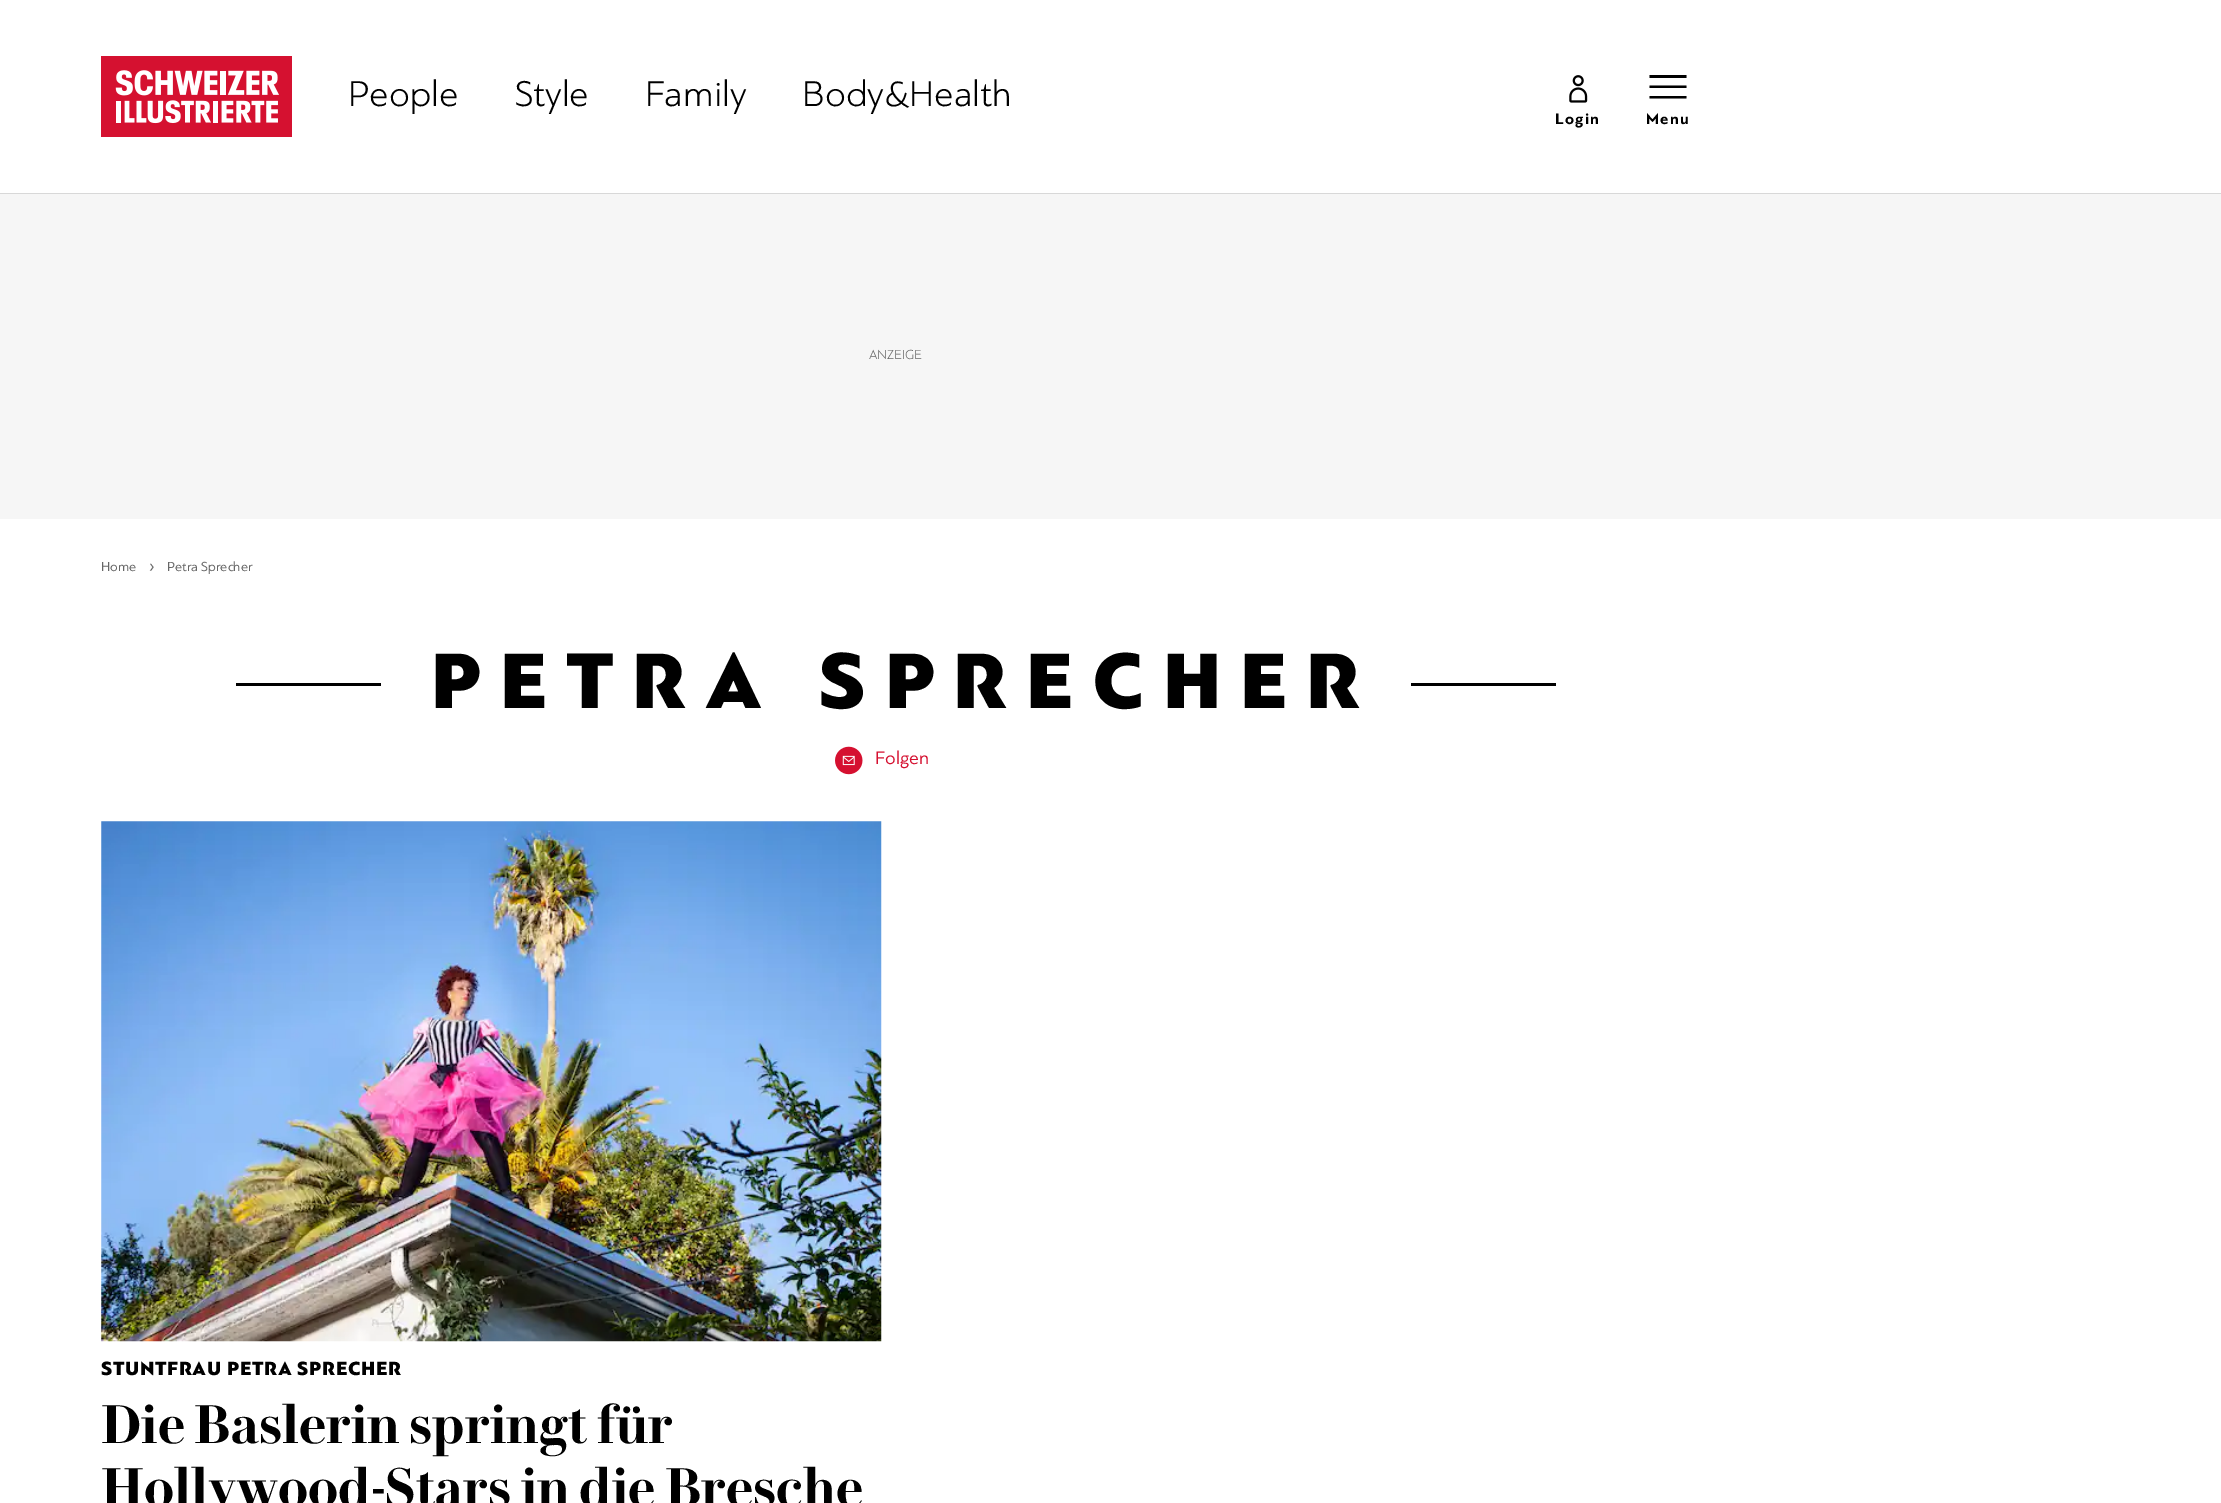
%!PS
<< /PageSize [2221 1503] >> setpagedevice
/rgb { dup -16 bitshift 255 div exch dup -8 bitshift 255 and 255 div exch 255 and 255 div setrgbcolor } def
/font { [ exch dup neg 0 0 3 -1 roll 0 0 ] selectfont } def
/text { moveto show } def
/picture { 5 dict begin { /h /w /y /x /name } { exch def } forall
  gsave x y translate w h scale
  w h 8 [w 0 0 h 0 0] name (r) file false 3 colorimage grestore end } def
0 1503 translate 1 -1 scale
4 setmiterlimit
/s1 { /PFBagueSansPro-Light 37.5 font 16#000000 rgb } def
/s2 { /PFBagueSansPro-Light 13.75 font 16#666666 rgb } def
/s3 { /PFBagueSansPro-Regular 13.75 font 16#666666 rgb } def
/s4 { /PFBagueSansPro-Regular 19 font 16#666666 rgb } def
/s5 { /PFBagueSansPro-Regular 19 font 16#D51030 rgb } def
/s6 { /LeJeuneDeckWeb-SemiBold 52.5 font 16#000000 rgb } def
16#FFFFFF rgb
0 0 2221 1503 rectfill
(pic1.raw) 101 56 191 81 picture
s1
(People) 348 106 text
(Style) 515 106 text
(Family) 645 106 text
(Body&Health) 802 106 text
(pic2.raw) 1569 75 19 28 picture
/PFBagueSansPro-Bold 16 font
1555 124 moveto 1.25 0 (Login) ashow
1649.5 75 moveto 1686.5 75 lineto 1686.5 78 lineto 1649.5 78 lineto closepath 1649.5 85.5 moveto 1686.5 85.5 lineto 1686.5 88 lineto 1649.5 88 lineto closepath 1649.5 96 moveto 1686.5 96 lineto 1686.5 98.5 lineto 1649.5 98.5 lineto closepath fill
1646 124 moveto 1.25 0 (Menu) ashow
16#D8D8D8 rgb
0 193 2221 1 rectfill
16#F6F6F6 rgb
0 194 2221 325 rectfill
s2
(ANZEIGE) 869 359 text
s3
(Home) 101 571 text
s4
(›) 149 571 text
s3
(Petra Sprecher) 167 571 text
16#000000 rgb
236 683 1320 3 rectfill
16#FFFFFF rgb
381 683 1030 3 rectfill
/PFBagueSansPro-Black 82.5 font
16#000000 rgb
431 708 moveto 18.75 0 (PETRA SPRECHER) ashow
(pic3.raw) 835 746 28 29 picture
s5
(Folgen) 875 764 text
(pic4.raw) 101 821 781 521 picture
/PFBagueSansPro-Black 20 font
16#000000 rgb
101 1375 moveto 0.6 0 (STUNTFRAU PETRA SPRECHER) ashow
s6
(Die Baslerin springt für) 101 1443 text
(Hollywood-Stars in die Bresche) 101 1506 text
showpage
